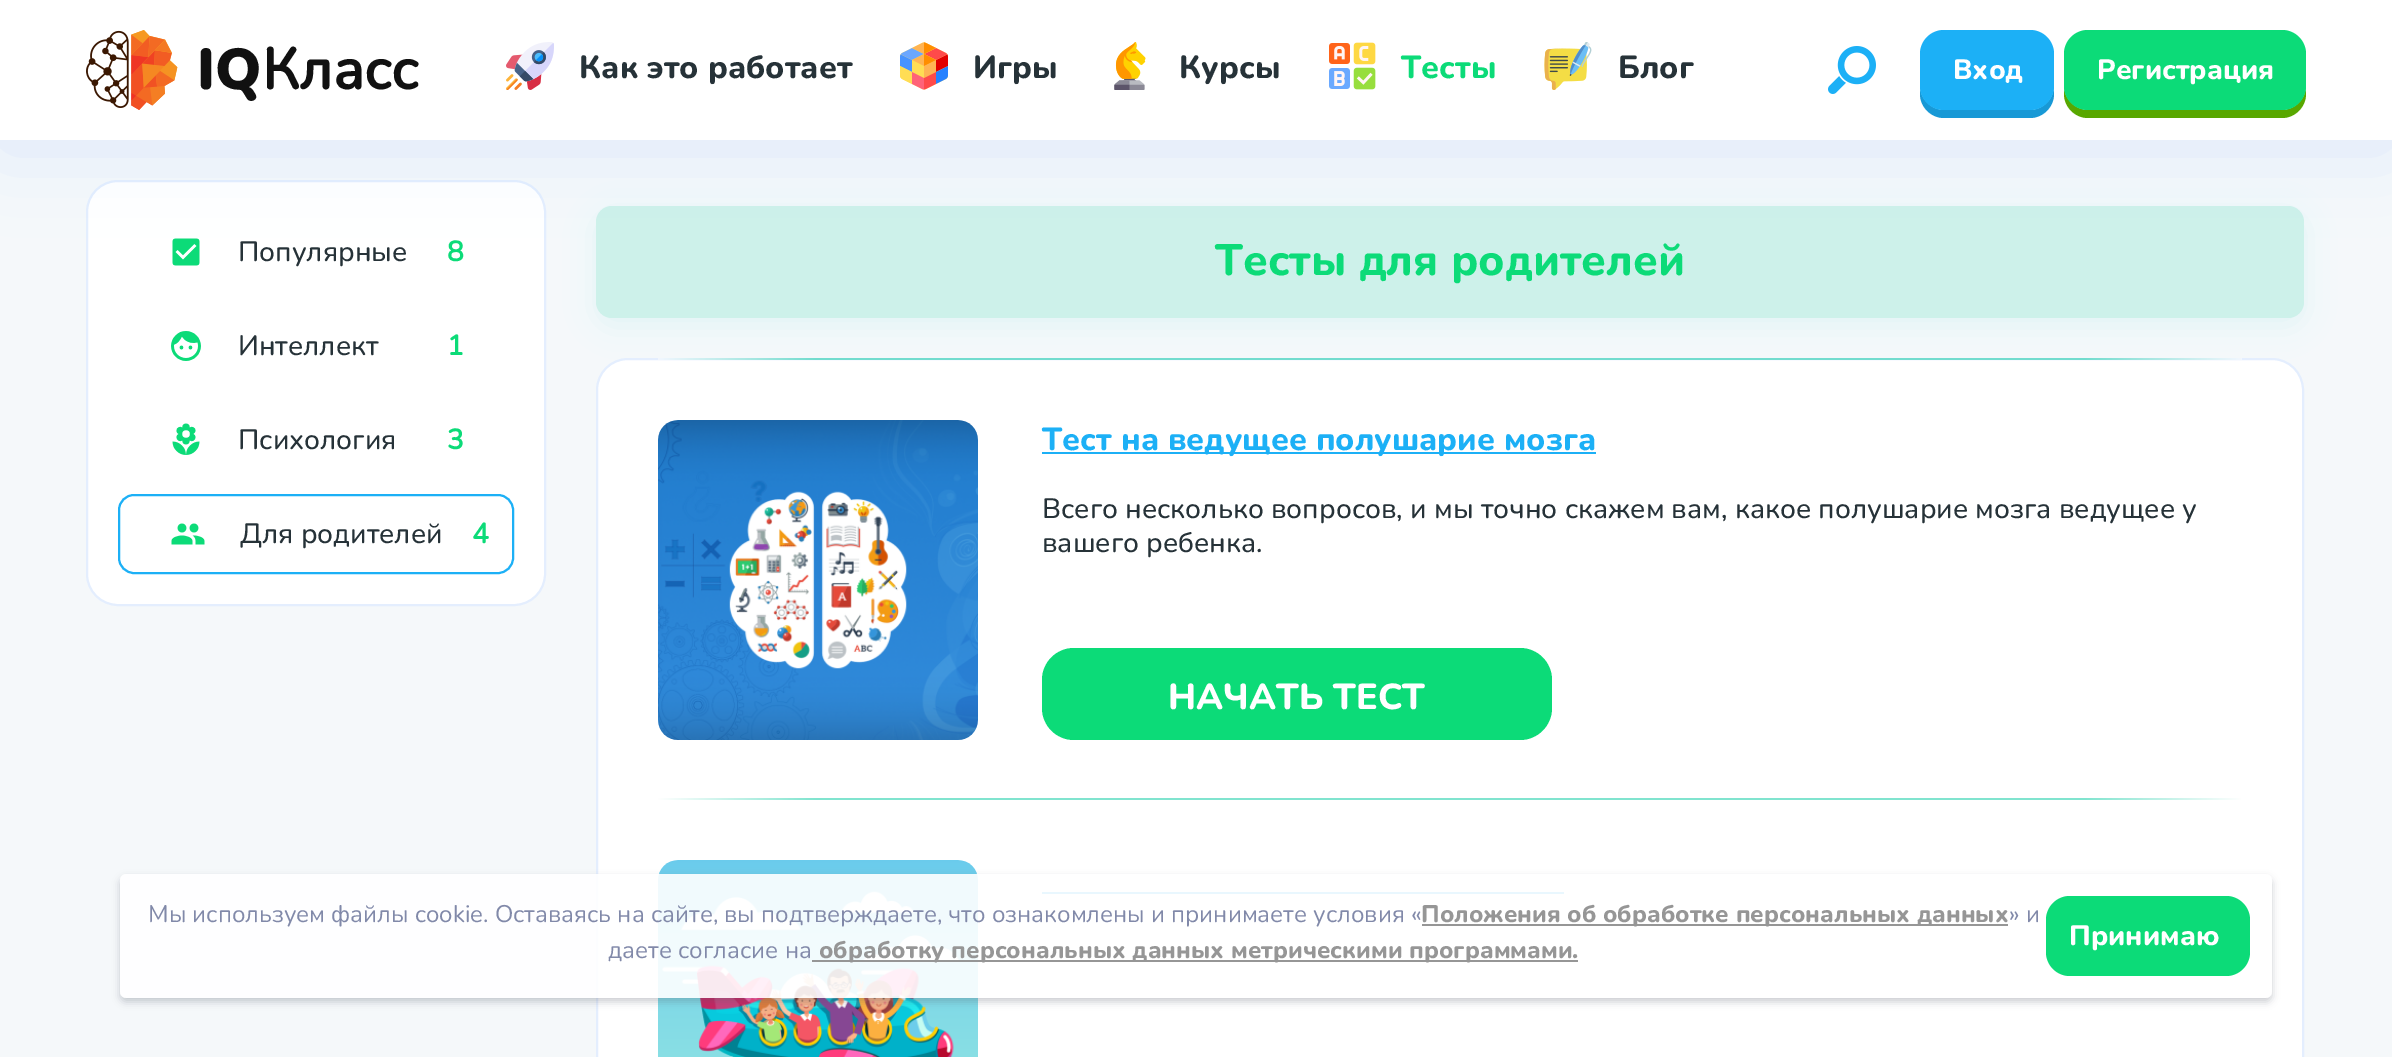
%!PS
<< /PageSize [2392 1057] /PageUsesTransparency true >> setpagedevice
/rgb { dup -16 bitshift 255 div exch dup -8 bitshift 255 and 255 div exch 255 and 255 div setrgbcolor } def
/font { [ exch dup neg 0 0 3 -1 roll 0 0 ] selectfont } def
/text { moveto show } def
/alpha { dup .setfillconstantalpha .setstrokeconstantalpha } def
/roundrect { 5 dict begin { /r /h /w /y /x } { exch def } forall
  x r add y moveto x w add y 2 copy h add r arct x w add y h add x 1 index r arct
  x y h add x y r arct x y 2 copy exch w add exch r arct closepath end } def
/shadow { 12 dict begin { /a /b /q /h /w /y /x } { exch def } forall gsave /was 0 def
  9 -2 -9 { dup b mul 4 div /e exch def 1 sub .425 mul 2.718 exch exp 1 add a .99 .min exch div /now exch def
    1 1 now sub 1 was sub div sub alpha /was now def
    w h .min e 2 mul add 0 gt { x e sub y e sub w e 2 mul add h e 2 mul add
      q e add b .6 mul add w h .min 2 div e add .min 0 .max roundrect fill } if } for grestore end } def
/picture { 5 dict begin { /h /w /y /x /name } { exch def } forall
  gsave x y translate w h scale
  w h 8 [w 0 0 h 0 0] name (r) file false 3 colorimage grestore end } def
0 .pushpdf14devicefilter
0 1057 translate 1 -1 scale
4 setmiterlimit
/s1 { /Nunito-Black 57.5 font 16#111111 rgb } def
/s2 { /Nunito-Bold 57.5 font 16#111111 rgb } def
/s3 { /Nunito-ExtraBold 32 font 16#263238 rgb } def
/s4 { /Nunito-ExtraBold 32 font 16#0CDB78 rgb } def
/s5 { /Nunito-ExtraBold 28 font 16#FFFFFF rgb } def
/s6 { /Nunito-Medium 28 font 16#263238 rgb } def
/s7 { /Nunito-Bold 28 font 16#0CDB78 rgb } def
/s8 { /Nunito-ExtraBold 44 font 16#0CDB78 rgb } def
/s9 { /Nunito-ExtraBold 32 font 16#1CB0F6 rgb } def
/s10 { /Nunito-ExtraBold 36 font 16#FFFFFF rgb } def
/s11 { /Nunito-Regular 24 font 16#8189A9 rgb } def
/s12 { /Nunito-ExtraBold 24 font 16#969696 rgb } def
16#F5F8FA rgb
0 0 2392 1057 rectfill
16#FFFFFF rgb
87 181 458 424 31 roundrect gsave fill grestore
16#E4EEFE rgb
2 setlinewidth
stroke
(pic8.raw) 172 238 28 28 picture
16#00C09C rgb
596 214 1708 112 16 15 0.07 shadow
16#CDF1EA rgb
596 206 1708 112 16 roundrect fill
16#5082FF rgb
0 8 2392 140 0 40 0.15 shadow
16#FFFFFF rgb
0 0 2392 140 rectfill
(pic1.raw) 86 30 92 80 picture
s1
(IQ) 197 89 text
s2
(Класс) 262 89 text
(pic2.raw) 506 42 48 48 picture
s3
(Как это работает) 579 78 text
(pic3.raw) 900 42 48 48 picture
(Игры) 973 78 text
(pic4.raw) 1114 42 32 48 picture
(Курсы) 1179 78 text
(pic5.raw) 1329 42 47 48 picture
s4
(Тесты) 1401 78 text
(pic6.raw) 1544 42 48 48 picture
s3
(Блог) 1618 78 text
(pic7.raw) 1828 46 48 48 picture
16#1899D6 rgb
1920 86 moveto 1920 94 lineto 1920 107 1931 118 1944 118 curveto 2030 118 lineto 2043 118 2054 107 2054 94 curveto 2054 86 lineto 2054 99 2043 110 2030 110 curveto 1944 110 lineto 1931 110 1920 99 1920 86 curveto closepath fill
16#1CB0F6 rgb
1920 30 134 80 24 roundrect fill
s5
(Вход) 1953 79 text
16#58A700 rgb
2064 86 moveto 2064 94 lineto 2064 107 2075 118 2088 118 curveto 2282 118 lineto 2295 118 2306 107 2306 94 curveto 2306 86 lineto 2306 99 2295 110 2282 110 curveto 2088 110 lineto 2075 110 2064 99 2064 86 curveto closepath fill
16#0CDB78 rgb
2064 30 242 80 24 roundrect fill
s5
(Регистрация) 2097 79 text
s6
(Популярные) 238 261 text
s7
(8) 447 261 text
(pic9.raw) 171 331 30 30 picture
s6
(Интеллект) 238 355 text
s7
(1) 447 355 text
(pic10.raw) 172 423 28 32 picture
s6
(Психология) 238 449 text
s7
(3) 447 449 text
16#1CB0F6 rgb
119 495 394 78 15 roundrect stroke
(pic11.raw) 171 523 34 22 picture
s6
(Для родителей) 240 543 text
s7
(4) 472 543 text
s8
(Тесты для родителей) 1215 275 text
16#FFFFFF rgb
597 359 1706 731 31 roundrect gsave fill grestore
16#E4EEFE rgb
stroke
gsave 658 358 moveto 2242 358 lineto 2242 360 lineto 658 360 lineto closepath clip newpath
<< /ShadingType 2 /ColorSpace /DeviceRGB /Coords [658 359 2242 359] /Extend [true true] /Function << /FunctionType 3 /Domain [0 1] /Functions [<< /FunctionType 2 /Domain [0 1] /C0 [0.949 0.969 1] /C1 [0.447 0.863 0.808] /N 1 >> << /FunctionType 2 /Domain [0 1] /C0 [0.447 0.863 0.808] /C1 [0.447 0.863 0.808] /N 1 >> << /FunctionType 2 /Domain [0 1] /C0 [0.447 0.863 0.808] /C1 [0.949 0.969 1] /N 1 >>] /Bounds [0.1 0.9] /Encode [0 1 0 1 0 1] >> >> shfill grestore
(pic12.raw) 658 420 320 320 picture
16#1CB0F6 rgb
1042 452 554 2 rectfill
s9
(Тест на ведущее полушарие мозга) 1042 450 text
s6
(Всего несколько вопросов, и мы точно скажем вам, какое полушарие мозга ведущее у) 1042 518 text
(вашего ребенка.) 1042 552 text
16#0CDB78 rgb
1042 648 510 92 32 roundrect fill
s10
(НАЧАТЬ ТЕСТ) 1168 709 text
gsave 658 798 moveto 2242 798 lineto 2242 800 lineto 658 800 lineto closepath clip newpath
<< /ShadingType 2 /ColorSpace /DeviceRGB /Coords [658 799 2242 799] /Extend [true true] /Function << /FunctionType 3 /Domain [0 1] /Functions [<< /FunctionType 2 /Domain [0 1] /C0 [1 1 1] /C1 [0.502 0.894 0.812] /N 1 >> << /FunctionType 2 /Domain [0 1] /C0 [0.502 0.894 0.812] /C1 [0.502 0.894 0.812] /N 1 >> << /FunctionType 2 /Domain [0 1] /C0 [0.502 0.894 0.812] /C1 [1 1 1] /N 1 >>] /Bounds [0.1 0.9] /Encode [0 1 0 1 0 1] >> >> shfill grestore
(pic13.raw) 658 860 320 197 picture
16#1CB0F6 rgb
1042 892 522 2 rectfill
gsave
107 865 moveto 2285 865 lineto 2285 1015 lineto 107 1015 lineto closepath 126 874 moveto 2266 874 lineto 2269.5 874 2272 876.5 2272 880 curveto 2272 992 lineto 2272 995.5 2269.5 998 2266 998 curveto 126 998 lineto 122.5 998 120 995.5 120 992 curveto 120 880 lineto 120 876.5 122.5 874 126 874 curveto closepath eoclip newpath
16#555C6A rgb
120 878 2152 124 6 4 0.3 shadow
grestore
0.9 alpha
16#FFFFFF rgb
120 874 2152 124 6 roundrect fill
1 alpha
s11
(Мы используем файлы cookie. Оставаясь на сайте, вы подтверждаете, что ознакомлены и принимаете условия «) 148 922 text
16#969696 rgb
1422 924 586 2 rectfill
s12
(Положения об обработке персональных данных) 1421 922 text
s11
(» и) 2009 922 text
(даете согласие на) 608 958 text
16#969696 rgb
812 960 766 2 rectfill
s12
(обработку персональных данных метрическими программами.) 819 958 text
16#0CDB78 rgb
2046 896 204 80 24 roundrect fill
s5
(Принимаю) 2069 945 text
.poppdf14devicefilter showpage
